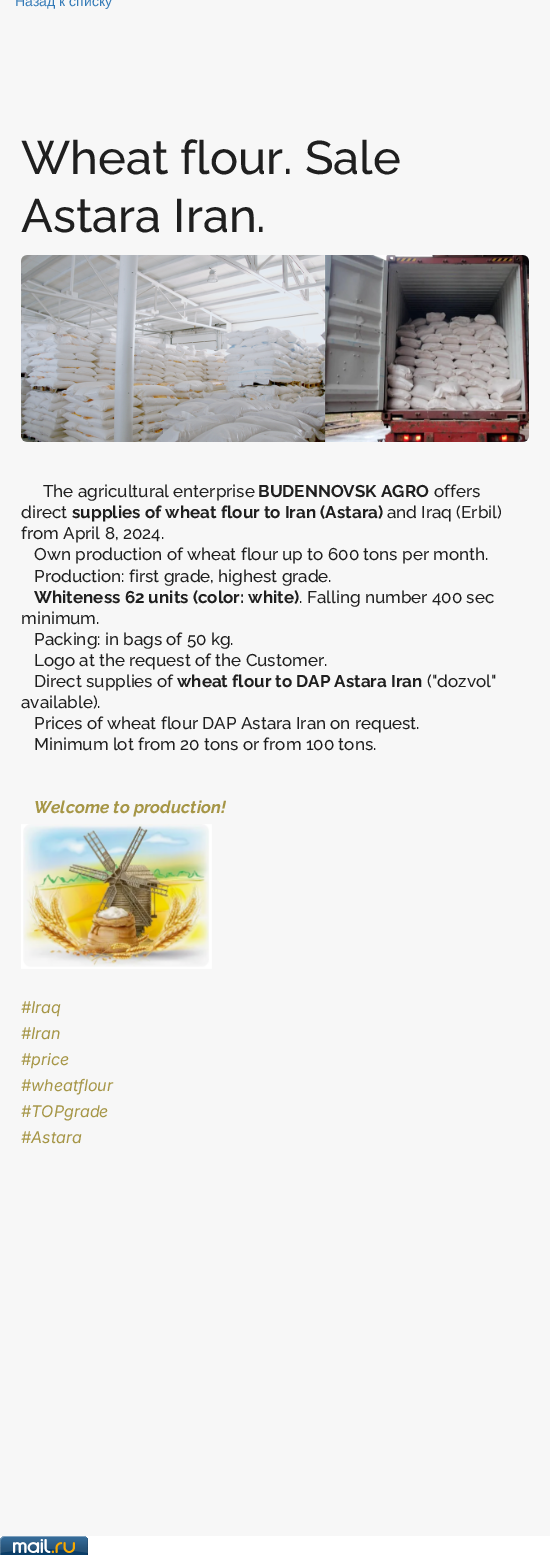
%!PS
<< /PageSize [550 1555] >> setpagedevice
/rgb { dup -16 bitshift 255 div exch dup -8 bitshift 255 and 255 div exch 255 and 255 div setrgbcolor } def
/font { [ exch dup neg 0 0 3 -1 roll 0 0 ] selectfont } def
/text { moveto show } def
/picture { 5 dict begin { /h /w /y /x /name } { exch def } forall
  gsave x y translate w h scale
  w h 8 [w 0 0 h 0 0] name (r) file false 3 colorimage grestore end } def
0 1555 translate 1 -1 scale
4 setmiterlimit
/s1 { /LiberationSans-Regular 14 font 16#337AB7 rgb } def
/s2 { /Raleway-Medium 47 font 16#1F1F1F rgb } def
/s3 { /Raleway-Medium 17 font 16#1F1F1F rgb } def
/s4 { /Raleway-Bold 17 font 16#1F1F1F rgb } def
/s5 { /Raleway-BoldItalic 17 font 16#A69646 rgb } def
/s6 { /Inter-Italic 16 font 16#A69646 rgb } def
16#FFFFFF rgb
0 0 550 1555 rectfill
16#F7F7F7 rgb
0 0 550 1536 rectfill
s1
(Назад к списку) 15 6 text
s2
(Wheat flour. Sale) 21 174 text
(Astara Iran.) 21 232 text
(pic1.raw) 21 255 508 187 picture
s3
(The agricultural enterprise) 43 497 text
s4
(BUDENNOVSK AGRO) 258 497 text
s3
(offers) 434 497 text
(direct) 21 518 text
s4
(supplies of wheat flour to Iran \(Astara\)) 72 518 text
s3
(and Iraq \(Erbil\)) 387 518 text
(from April 8, 2024.) 21 539 text
(Own production of wheat flour up to 600 tons per month.) 34 560 text
(Production: first grade, highest grade.) 34 582 text
s4
(Whiteness 62 units \(color: white\)) 34 603 text
s3
(. Falling number 400 sec) 299 603 text
(minimum.) 21 624 text
(Packing: in bags of 50 kg.) 34 645 text
(Logo at the request of the Customer.) 34 666 text
(Direct supplies of) 34 687 text
s4
(wheat flour to DAP Astara Iran) 177 687 text
s3
(\("dozvol") 427 687 text
(available\).) 21 708 text
(Prices of wheat flour DAP Astara Iran on request.) 34 729 text
(Minimum lot from 20 tons or from 100 tons.) 34 750 text
s5
(Welcome to production!) 34 813 text
(pic2.raw) 21 824 191 145 picture
s6
(#Iraq) 21 1013 text
(#Iran) 21 1039 text
(#price) 21 1065 text
(#wheatflour) 21 1091 text
(#TOPgrade) 21 1117 text
(#Astara) 21 1143 text
(pic3.raw) 0 1536 88 19 picture
showpage
